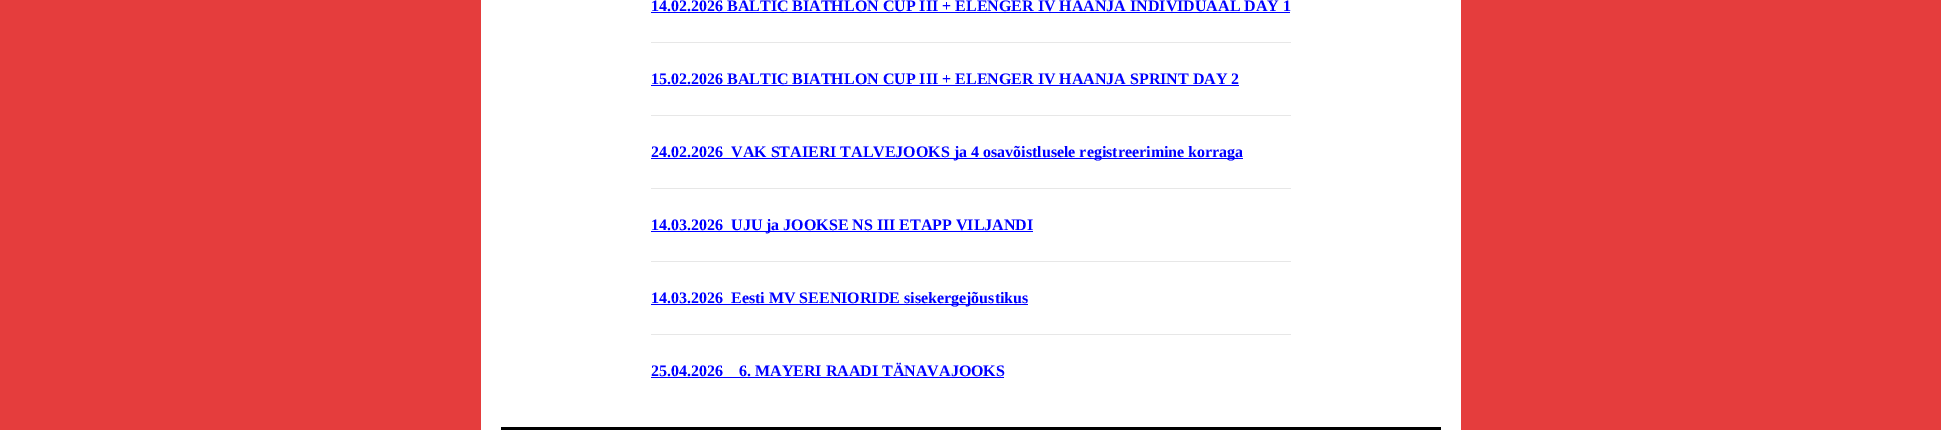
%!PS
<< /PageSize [1941 430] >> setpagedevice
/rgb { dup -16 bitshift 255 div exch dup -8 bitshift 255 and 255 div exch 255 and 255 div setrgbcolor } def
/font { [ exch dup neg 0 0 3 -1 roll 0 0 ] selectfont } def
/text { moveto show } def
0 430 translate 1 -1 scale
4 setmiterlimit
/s1 { /LiberationSerif-Bold 16 font 16#0000FF rgb } def
16#E53D3D rgb
0 0 1941 430 rectfill
16#FFFFFF rgb
481 0 980 430 rectfill
s1
(14.02.2026 BALTIC BIATHLON CUP III + ELENGER IV HAANJA INDIVIDUAAL DAY 1) 651 11 text
651 12 639 1 rectfill
16#E7E7E7 rgb
651 42 640 1 rectfill
s1
(15.02.2026 BALTIC BIATHLON CUP III + ELENGER IV HAANJA SPRINT DAY 2) 651 84 text
651 85 588 1 rectfill
16#E7E7E7 rgb
651 115 640 1 rectfill
16#0000FF rgb
651 158 592 1 rectfill
(24.02.2026  VAK STAIERI TALVEJOOKS ja 4 osavõistlusele registreerimine korraga) 651 157 text
16#E7E7E7 rgb
651 188 640 1 rectfill
16#0000FF rgb
651 231 382 1 rectfill
(14.03.2026  UJU ja JOOKSE NS III ETAPP VILJANDI) 651 230 text
16#E7E7E7 rgb
651 261 640 1 rectfill
16#0000FF rgb
651 304 377 1 rectfill
(14.03.2026  Eesti MV SEENIORIDE sisekergejõustikus) 651 303 text
16#E7E7E7 rgb
651 334 640 1 rectfill
s1
(25.04.2026    6. MAYERI RAADI TÄNAVAJOOKS) 651 376 text
651 377 353 1 rectfill
16#000000 rgb
501 427 940 3 rectfill
showpage
